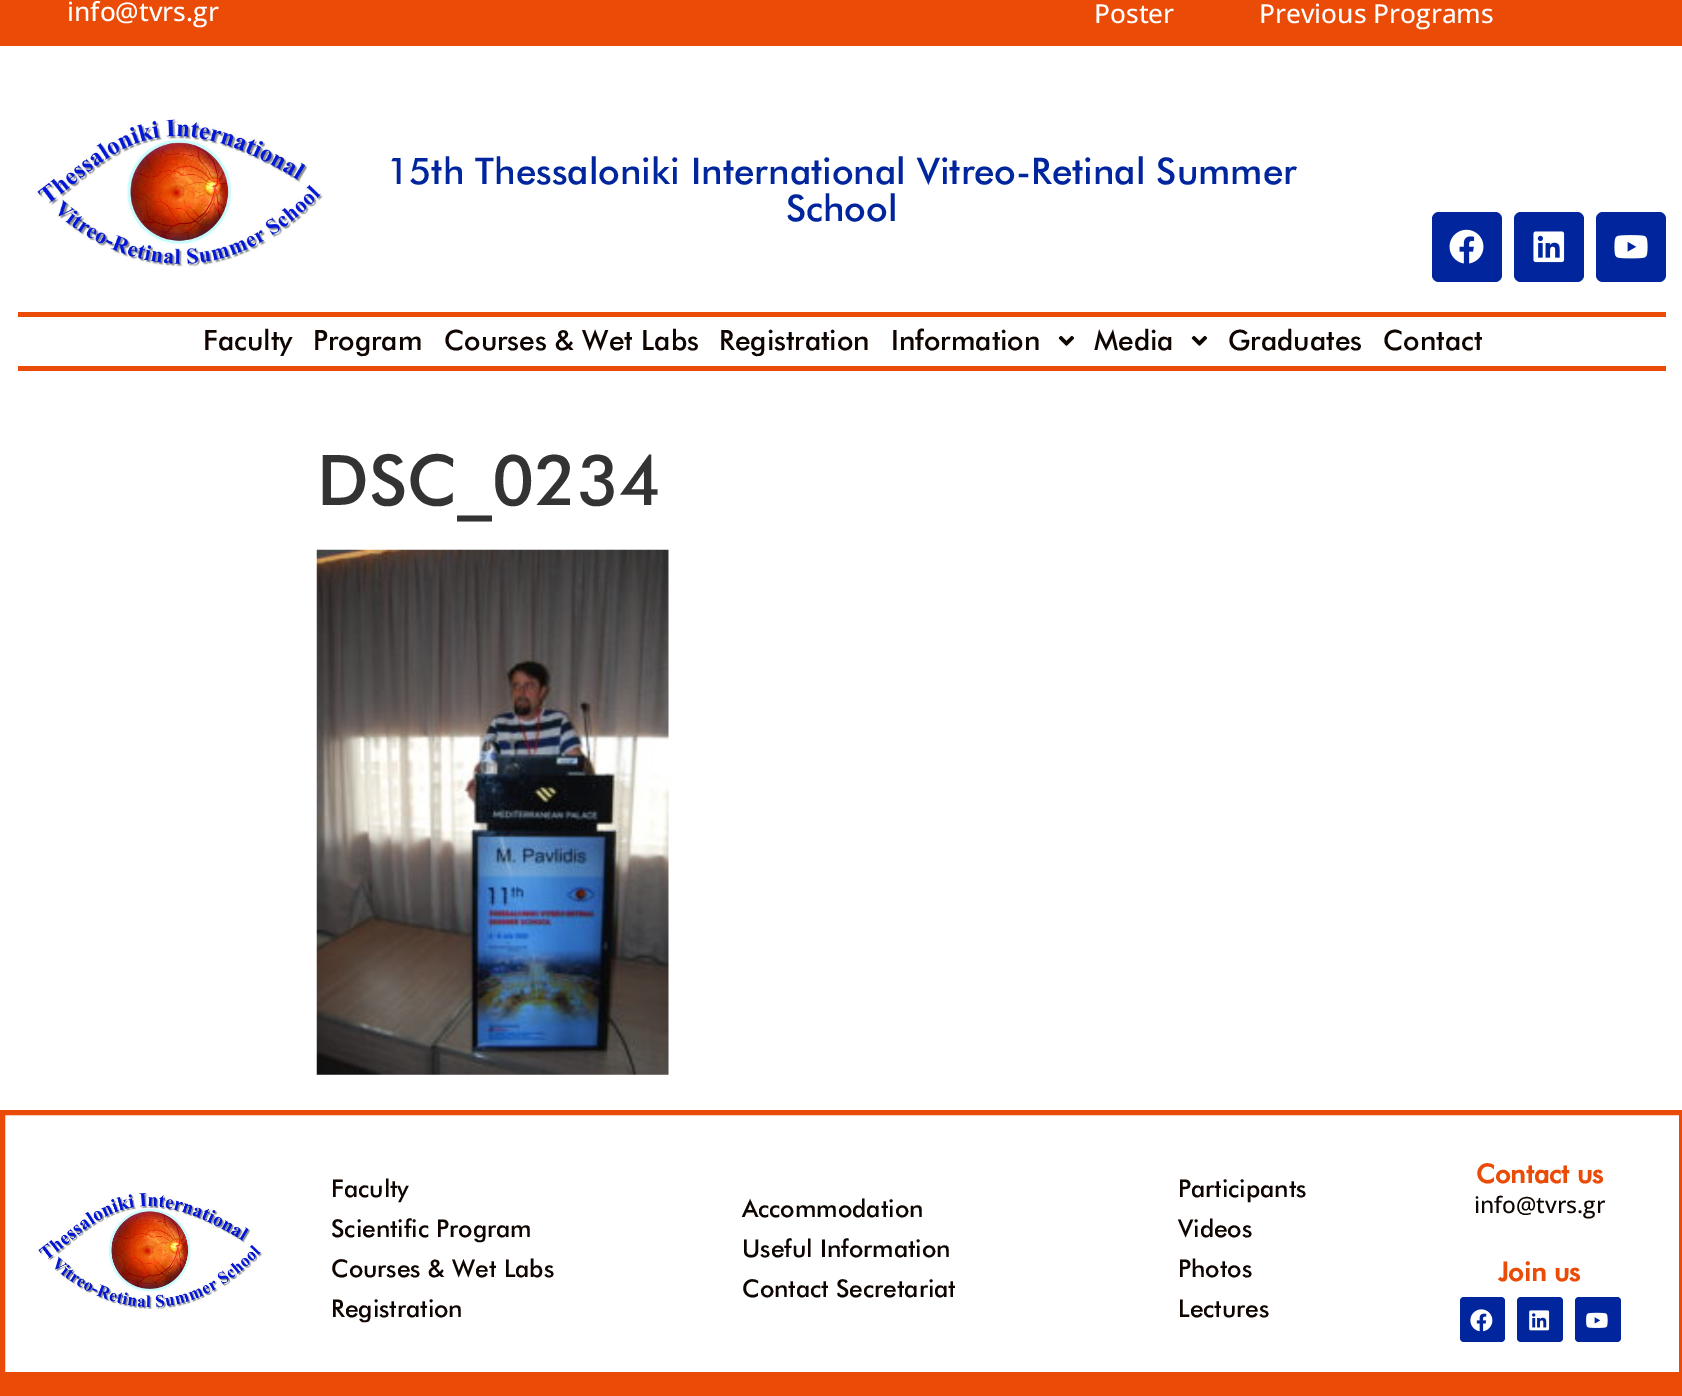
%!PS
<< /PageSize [1682 1396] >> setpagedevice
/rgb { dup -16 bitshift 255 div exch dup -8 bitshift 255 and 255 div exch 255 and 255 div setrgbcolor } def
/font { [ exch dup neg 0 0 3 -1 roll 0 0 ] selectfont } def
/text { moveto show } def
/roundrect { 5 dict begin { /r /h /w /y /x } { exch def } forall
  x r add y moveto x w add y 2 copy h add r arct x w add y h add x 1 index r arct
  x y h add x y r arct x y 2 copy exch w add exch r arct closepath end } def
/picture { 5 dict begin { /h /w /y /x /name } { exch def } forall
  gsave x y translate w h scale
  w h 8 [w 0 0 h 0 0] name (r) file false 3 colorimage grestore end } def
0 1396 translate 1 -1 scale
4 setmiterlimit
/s1 { /OpenSans-Medium 26.25 font 16#FFFFFF rgb } def
/s2 { /Futura-Medium 36.75 font 16#00259D rgb } def
/s3 { /Futura-Medium 28 font 16#0E0501 rgb } def
/s4 { /Futura-Medium 70 font 16#333333 rgb } def
/s5 { /Futura-Medium 24.5 font 16#0E0501 rgb } def
/s6 { /Futura-Bold 26.25 font 16#EA4C07 rgb } def
/s7 { /OpenSans-Medium 22.75 font 16#0E0501 rgb } def
16#FFFFFF rgb
0 0 1682 1396 rectfill
16#EA4C07 rgb
0 0 1682 46 rectfill
s1
(info@tvrs.gr) 67 21 text
(Poster) 1094 23 text
(Previous Programs) 1259 23 text
(pic1.raw) 33 119 291 148 picture
s2
(15th Thessaloniki International Vitreo-Retinal Summer) 387 184 text
(School) 786 221 text
1432 212 70 70 7 roundrect fill
(pic2.raw) 1449 229 35 35 picture
1514 212 70 70 7 roundrect fill
(pic3.raw) 1533 231 32 32 picture
1596 212 70 70 7 roundrect fill
(pic4.raw) 1614 235 34 24 picture
16#EA4C07 rgb
18 312 1648 5 rectfill
s3
(Faculty) 203 350 text
(Program) 313 350 text
(Courses & Wet Labs) 444 350 text
(Registration) 719 350 text
(Information) 891 350 text
(pic5.raw) 1058 335 17 11 picture
(Media) 1094 350 text
(pic5.raw) 1191 335 17 11 picture
(Graduates) 1228 350 text
(Contact) 1383 350 text
16#EA4C07 rgb
18 366 1648 5 rectfill
s4
(DSC_0234) 317 505 text
(pic6.raw) 316 549 353 526 picture
16#EA4C07 rgb
5 setlinewidth
2.5 1112.5 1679 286 rectstroke
(pic7.raw) 38 1193 226 116 picture
s5
(Faculty) 331 1197 text
(Scientific Program) 331 1237 text
(Courses & Wet Labs) 331 1277 text
(Registration) 331 1317 text
(Accommodation) 742 1217 text
(Useful Information) 742 1257 text
(Contact Secretariat) 742 1297 text
(Participants) 1178 1197 text
(Videos) 1178 1237 text
(Photos) 1178 1277 text
(Lectures) 1178 1317 text
s6
(Contact us) 1476 1183 text
s7
(info@tvrs.gr) 1474 1213 text
s6
(Join us) 1498 1281 text
16#00259D rgb
1460 1297 45 45 4 roundrect fill
(pic8.raw) 1470 1309 23 23 picture
1517 1297 46 45 4 roundrect fill
(pic9.raw) 1529 1310 21 21 picture
1575 1297 46 45 4 roundrect fill
(pic10.raw) 1586 1312 22 16 picture
16#EA4C07 rgb
5 1372 1674 24 rectfill
showpage
